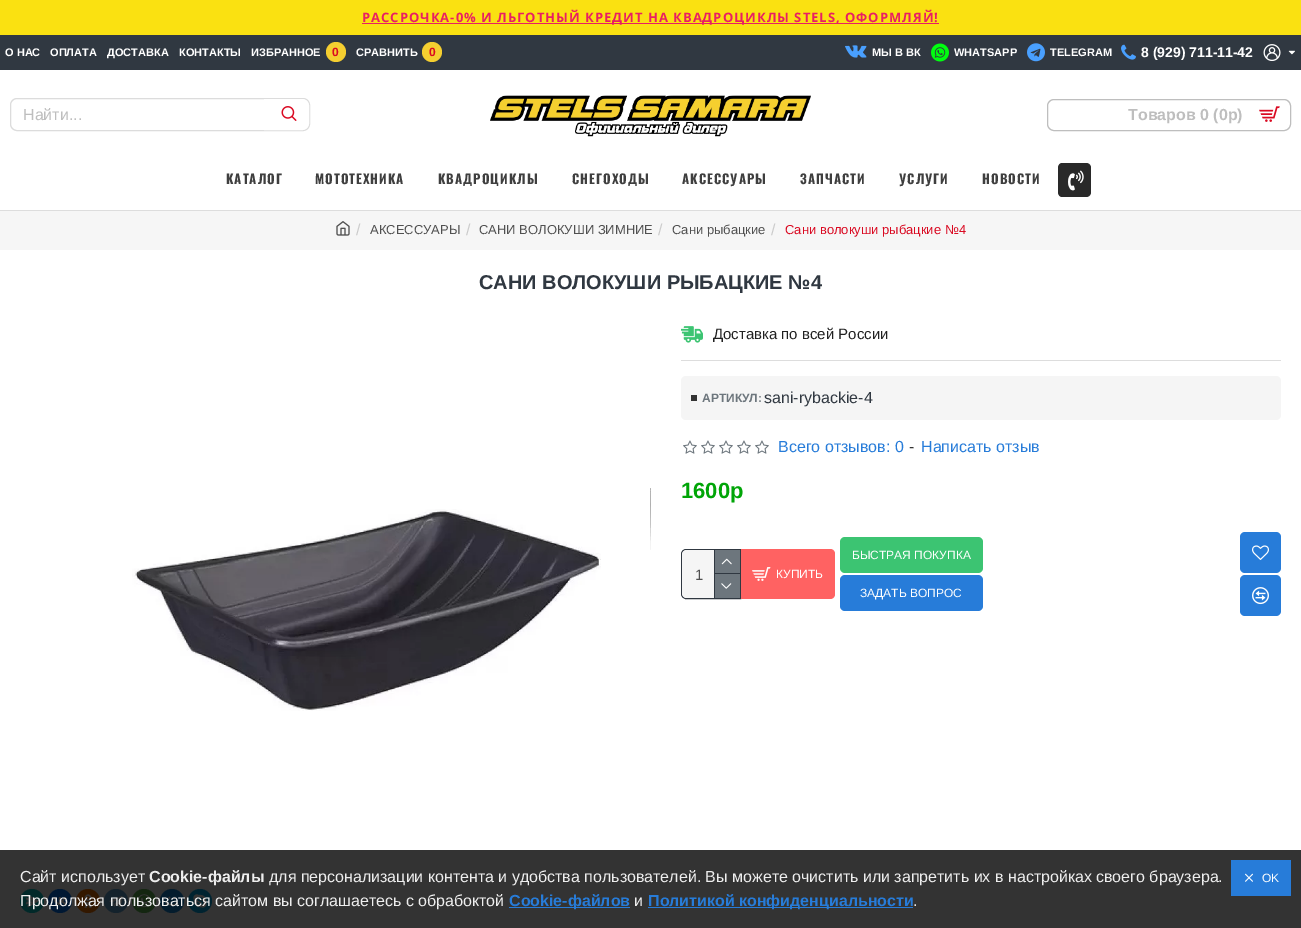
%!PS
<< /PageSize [1301 928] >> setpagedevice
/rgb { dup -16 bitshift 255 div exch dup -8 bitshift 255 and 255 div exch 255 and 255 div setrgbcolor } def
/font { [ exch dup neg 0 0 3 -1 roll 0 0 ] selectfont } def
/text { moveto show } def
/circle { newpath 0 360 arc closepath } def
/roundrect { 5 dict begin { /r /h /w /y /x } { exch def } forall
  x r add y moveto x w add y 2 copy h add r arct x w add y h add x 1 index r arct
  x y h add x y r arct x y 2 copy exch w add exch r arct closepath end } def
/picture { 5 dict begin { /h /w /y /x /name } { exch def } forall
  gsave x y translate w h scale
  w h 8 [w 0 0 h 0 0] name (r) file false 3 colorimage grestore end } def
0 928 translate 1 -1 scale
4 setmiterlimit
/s1 { /LiberationSans-Bold 11 font 16#FFFFFF rgb } def
/s2 { /LiberationSans-Bold 12 font 16#DA0A22 rgb } def
/s3 { /LiberationSans-Bold 14 font 16#FFFFFF rgb } def
/s4 { /LiberationSans-Regular 16 font 16#BEBEBE rgb } def
/s5 { /LiberationSans-Bold 16 font 16#BEBEBE rgb } def
/s6 { /LiberationSans-Regular 16 font 16#CCCCCC rgb } def
/s7 { /LiberationSans-Regular 13 font 16#505050 rgb } def
/s8 { /LiberationSans-Regular 13 font 16#DA0A22 rgb } def
/s9 { /LiberationSans-Bold 20 font 16#303841 rgb } def
/s10 { /LiberationSans-Regular 15 font 16#212121 rgb } def
/s11 { /LiberationSans-Bold 12 font 16#6D767D rgb } def
/s12 { /LiberationSans-Regular 16 font 16#303841 rgb } def
/s13 { /LiberationSans-Regular 16 font 16#277CD9 rgb } def
/s14 { /LiberationSans-Regular 16 font 16#333333 rgb } def
/s15 { /LiberationSans-Bold 22 font 16#00A507 rgb } def
/s16 { /LiberationSans-Regular 15 font 16#505050 rgb } def
/s17 { /LiberationSans-Regular 12 font 16#FFFFFF rgb } def
/s18 { /LiberationSans-Regular 16 font 16#EEEEEE rgb } def
/s19 { /LiberationSans-Bold 16 font 16#EEEEEE rgb } def
/s20 { /LiberationSans-Bold 16 font 16#277CD9 rgb } def
16#FFFFFF rgb
0 0 1301 928 rectfill
16#333333 rgb
0 850 1301 78 rectfill
16#FAE111 rgb
0 0 1301 35 rectfill
16#E91E63 rgb
362 23 577 1 rectfill
/OpenSans-Bold 13 font
362 22 moveto 1 0 (РАССРОЧКА-0% И ЛЬГОТНЫЙ КРЕДИТ НА КВАДРОЦИКЛЫ STELS, ОФОРМЛЯЙ!) ashow
16#303841 rgb
0 35 1301 35 rectfill
s1
(О НАС) 5 56 text
(ОПЛАТА) 50 56 text
(ДОСТАВКА) 107 56 text
(КОНТАКТЫ) 179 56 text
(ИЗБРАННОЕ) 251 56 text
16#F5CF30 rgb
336 52 10 circle fill
s2
(0) 332 56 text
s1
(СРАВНИТЬ) 356 56 text
16#F5CF30 rgb
432 52 10 circle fill
s2
(0) 429 56 text
(pic1.raw) 845 45 22 13 picture
s1
(МЫ В ВК) 872 56 text
(pic2.raw) 931 43 18 19 picture
(WHATSAPP) 954 56 text
(pic3.raw) 1027 43 18 19 picture
(TELEGRAM) 1050 56 text
(pic4.raw) 1121 44 15 16 picture
s3
(8 \(929\) 711-11-42) 1141 57 text
(pic5.raw) 1263 44 18 17 picture
(pic6.raw) 1288 50 7 5 picture
16#DCDCDC rgb
10.5 98.5 299 32 6.5 roundrect stroke
s4
(Найти...) 23 120 text
16#FFFFFF rgb
3 setlinewidth
265.5 100.5 moveto 302 100.5 lineto 305 100.5 307.5 103 307.5 106 curveto 307.5 123 lineto 307.5 126 305 128.5 302 128.5 curveto 265.5 128.5 lineto closepath stroke
(pic7.raw) 281 106 16 15 picture
(pic8.raw) 490 95 321 42 picture
16#BEBEBE rgb
1 setlinewidth
1047.5 99.5 243 31 6.5 roundrect stroke
s5
(Товаров 0 \(0р\)) 1128 120 text
(pic9.raw) 1259 106 21 16 picture
/Oswald-Bold 13 font
16#3F3F3F rgb
226 184 moveto 1 0 (КАТАЛОГ) ashow
315 184 moveto 1 0 (МОТОТЕХНИКА) ashow
438 184 moveto 1 0 (КВАДРОЦИКЛЫ) ashow
572 184 moveto 1 0 (СНЕГОХОДЫ) ashow
682 184 moveto 1 0 (АКСЕССУАРЫ) ashow
800 184 moveto 1 0 (ЗАПЧАСТИ) ashow
899 184 moveto 1 0 (УСЛУГИ) ashow
982 184 moveto 1 0 (НОВОСТИ) ashow
16#292929 rgb
1062 163 moveto 1086 163 lineto 1089 163 1091 165 1091 168 curveto 1091 192 lineto 1091 195 1089 197 1086 197 curveto 1062 197 lineto 1060 197 1058 195 1058 192 curveto 1058 168 lineto 1058 165 1060 163 1062 163 curveto closepath fill
(pic10.raw) 1068 170 16 21 picture
16#F6F6F6 rgb
0 211 1301 39 rectfill
16#DDDDDD rgb
0 210 1301 1 rectfill
(pic11.raw) 336 221 14 15 picture
s6
(/) 356 235 text
s7
(АКСЕССУАРЫ) 370 234 text
s6
(/) 466 235 text
s7
(САНИ ВОЛОКУШИ ЗИМНИЕ) 479 234 text
s6
(/) 658 235 text
s7
(Сани рыбацкие) 672 234 text
s6
(/) 771 235 text
s8
(Сани волокуши рыбацкие №4) 785 234 text
s9
(САНИ ВОЛОКУШИ РЫБАЦКИЕ №4) 479 289 text
(pic12.raw) 132 509 469 202 picture
(pic13.raw) 650 488 1 62 picture
16#012929 rgb
32 901 12 circle fill
(pic14.raw) 25 894 14 14 picture
16#001833 rgb
60 901 12 circle fill
(pic15.raw) 53 897 14 9 picture
16#331800 rgb
88 901 12 circle fill
(pic16.raw) 83 894 10 14 picture
16#14222C rgb
116 901 12 circle fill
(pic17.raw) 109 896 14 12 picture
16#142611 rgb
144 901 12 circle fill
(pic18.raw) 137 894 14 14 picture
16#041C2D rgb
172 901 12 circle fill
(pic19.raw) 165 896 14 10 picture
16#002330 rgb
200 901 12 circle fill
(pic20.raw) 193 894 14 14 picture
16#DDDDDD rgb
681 360 600 1 rectfill
(pic21.raw) 681 326 22 17 picture
s10
(Доставка по всей России) 713 339 text
16#F5F5F5 rgb
681 376 600 44 5 roundrect fill
16#333333 rgb
691 395 6 6 rectfill
s11
(АРТИКУЛ:) 702 402 text
s12
(sani-rybackie-4) 764 403 text
(pic22.raw) 683 440 14 14 picture
(pic22.raw) 701 440 14 14 picture
(pic22.raw) 719 440 14 14 picture
(pic22.raw) 737 440 14 14 picture
(pic22.raw) 755 440 14 14 picture
s13
(Всего отзывов: 0) 778 452 text
s14
(-) 909 452 text
s13
(Написать отзыв) 921 452 text
s15
(1600р) 681 498 text
16#303841 rgb
686 549.5 moveto 740.5 549.5 lineto 740.5 598.5 lineto 686 598.5 lineto 683.5 598.5 681.5 596.5 681.5 594 curveto 681.5 554 lineto 681.5 551.5 683.5 549.5 686 549.5 curveto closepath stroke
16#F5F5F5 rgb
687 550 moveto 740 550 lineto 740 598 lineto 687 598 lineto 684 598 682 596 682 593 curveto 682 555 lineto 682 552 684 550 687 550 curveto closepath fill
s16
(1) 695 580 text
16#303841 rgb
714 550 1 48 rectfill
16#6D767D rgb
715 550 25 23 rectfill
16#303841 rgb
715 573 25 1 rectfill
(pic23.raw) 721 558 11 7 picture
16#6D767D rgb
715 574 25 24 rectfill
(pic24.raw) 721 583 11 6 picture
16#FF6262 rgb
741 549 moveto 830 549 lineto 833 549 835 551 835 554 curveto 835 594 lineto 835 597 833 599 830 599 curveto 741 599 lineto closepath fill
(pic25.raw) 752 567 19 14 picture
s17
(КУПИТЬ) 776 578 text
16#3CC472 rgb
840 537 143 36 5 roundrect fill
s17
(БЫСТРАЯ ПОКУПКА) 852 559 text
16#277CD9 rgb
840 575 143 36 5 roundrect fill
s17
(ЗАДАТЬ ВОПРОС) 860 597 text
16#277CD9 rgb
1240 532 41 41 5 roundrect fill
(pic26.raw) 1252 545 17 15 picture
1240 575 41 41 5 roundrect fill
(pic27.raw) 1252 587 17 18 picture
s18
(Сайт использует) 20 882 text
s19
(Cookie-файлы) 149 882 text
s18
(для персонализации контента и удобства пользователей. Вы можете очистить или запретить их в настройках своего браузера.) 269 882 text
(Продолжая пользоваться сайтом вы соглашаетесь с обрабоктой) 20 906 text
16#277CD9 rgb
509 907 121 1 rectfill
s20
(Cookie-файлов) 509 906 text
s18
(и) 634 906 text
16#277CD9 rgb
648 907 265 1 rectfill
s20
(Политикой конфиденциальности) 648 906 text
s18
(.) 913 906 text
16#277CD9 rgb
1231 860 60 36 rectfill
(pic28.raw) 1245 873 8 9 picture
s17
(OK) 1262 882 text
showpage
